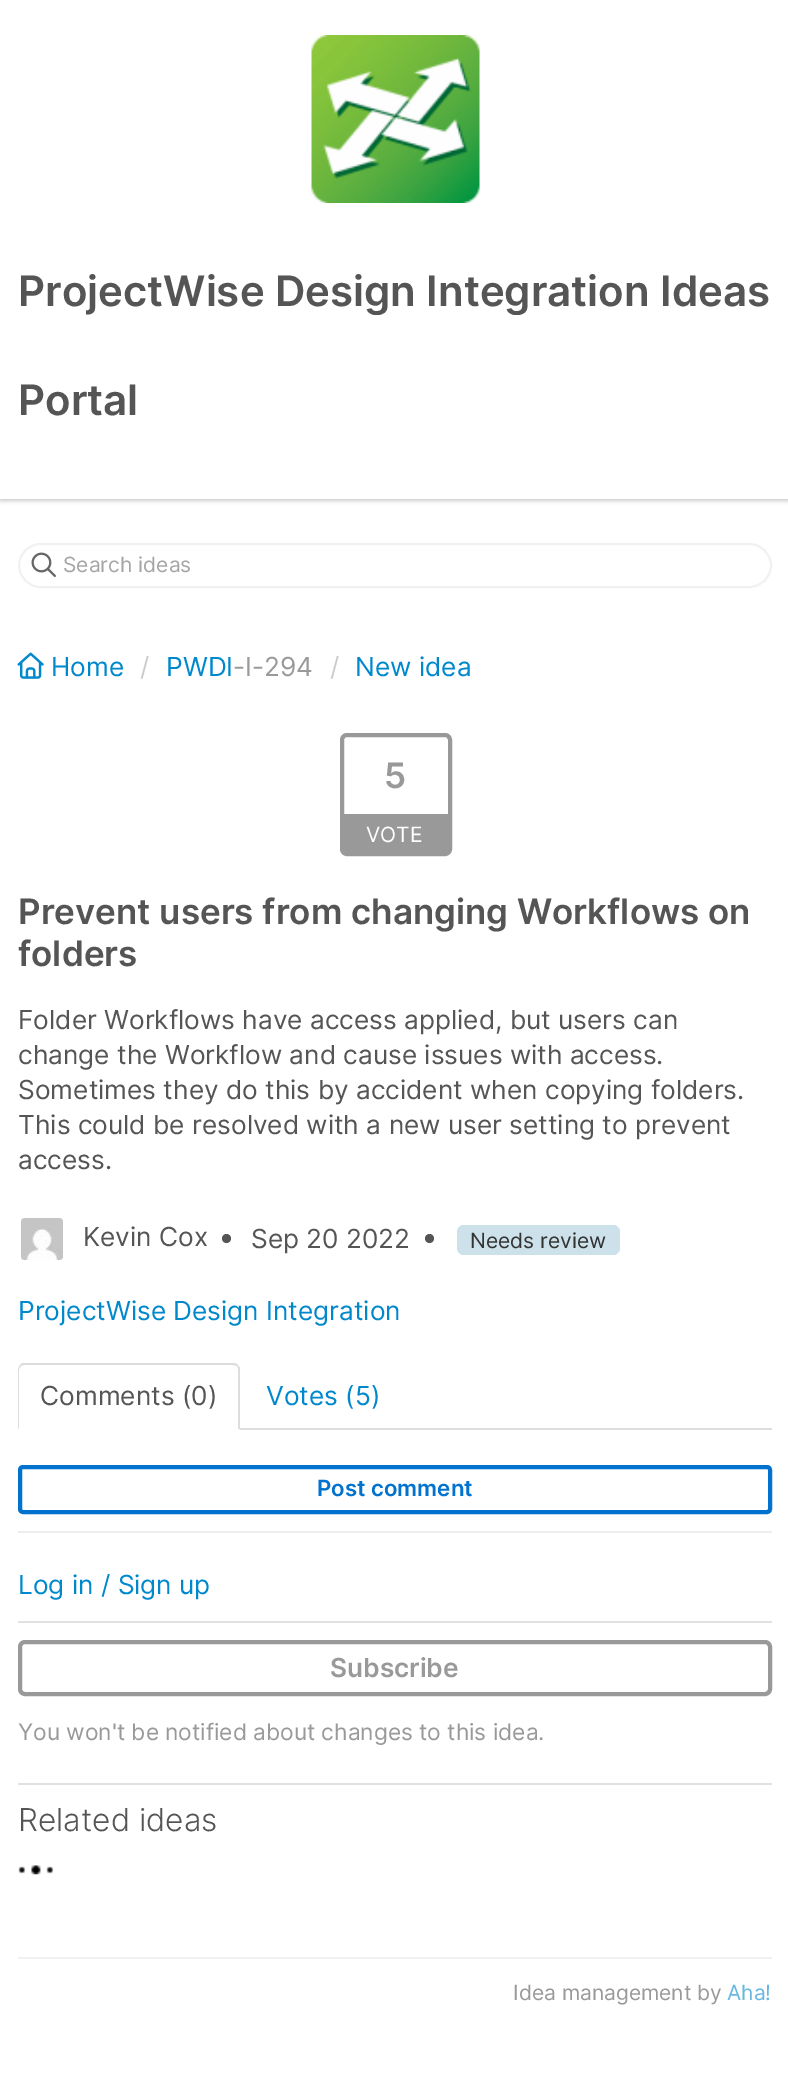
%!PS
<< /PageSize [788 2091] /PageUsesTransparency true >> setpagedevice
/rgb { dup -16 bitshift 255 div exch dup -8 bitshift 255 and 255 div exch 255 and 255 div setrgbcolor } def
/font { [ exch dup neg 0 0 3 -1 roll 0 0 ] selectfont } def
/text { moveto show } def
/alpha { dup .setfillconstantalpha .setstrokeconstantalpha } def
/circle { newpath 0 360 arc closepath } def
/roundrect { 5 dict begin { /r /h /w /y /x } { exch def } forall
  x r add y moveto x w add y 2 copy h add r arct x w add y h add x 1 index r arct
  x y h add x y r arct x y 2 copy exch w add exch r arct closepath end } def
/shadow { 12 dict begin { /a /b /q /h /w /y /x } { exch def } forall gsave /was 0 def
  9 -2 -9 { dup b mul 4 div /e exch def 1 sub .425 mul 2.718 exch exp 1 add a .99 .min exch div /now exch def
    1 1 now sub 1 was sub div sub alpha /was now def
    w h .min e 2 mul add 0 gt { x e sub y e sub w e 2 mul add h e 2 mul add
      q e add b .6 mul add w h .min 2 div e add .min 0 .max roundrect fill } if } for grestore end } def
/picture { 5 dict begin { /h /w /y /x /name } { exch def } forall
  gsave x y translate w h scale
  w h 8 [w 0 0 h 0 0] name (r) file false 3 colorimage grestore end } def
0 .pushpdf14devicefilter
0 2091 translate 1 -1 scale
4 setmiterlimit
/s1 { /Inter-SemiBold 42 font 16#555555 rgb } def
/s2 { /Inter-Regular 21 font 16#A5A5A5 rgb } def
/s3 { /Inter-Regular 26.25 font 16#0088CC rgb } def
/s4 { /Inter-Regular 26.25 font 16#CCCCCC rgb } def
/s5 { /Inter-Regular 26.25 font 16#999999 rgb } def
/s6 { /Inter-SemiBold 35 font 16#999999 rgb } def
/s7 { /Inter-Regular 21 font 16#FFFFFF rgb } def
/s8 { /Inter-SemiBold 35 font 16#555555 rgb } def
/s9 { /Inter-Regular 26.25 font 16#555555 rgb } def
/s10 { /Inter-Regular 21 font 16#333333 rgb } def
/s11 { /Inter-SemiBold 22.25 font 16#0173CF rgb } def
/s12 { /Inter-SemiBold 26.25 font 16#999999 rgb } def
/s13 { /Inter-Regular 22.75 font 16#999999 rgb } def
/s14 { /Inter-Light 31.5 font 16#555555 rgb } def
/s15 { /Inter-Regular 21 font 16#999999 rgb } def
/s16 { /Inter-Regular 21 font 16#66B8E0 rgb } def
16#FFFFFF rgb
0 0 788 2091 rectfill
16#000000 rgb
0 2 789 499 0 2 0.2 shadow
16#FFFFFF rgb
0 0 788 499 rectfill
(pic1.raw) 311 35 169 168 picture
s1
(ProjectWise Design Integration Ideas) 18 306 text
(Portal) 18 415 text
16#F1F1F1 rgb
2 setlinewidth
19 544 752 43 21.5 roundrect stroke
(pic2.raw) 31 552 25 25 picture
s2
(Search ideas) 63 572 text
(pic3.raw) 17 652 27 27 picture
s3
(Home) 51 676 text
s4
(/) 140 676 text
s3
(PWDI) 166 676 text
s5
(-I-294) 233 676 text
s4
(/) 330 676 text
s3
(New idea) 355 676 text
16#999999 rgb
4 setlinewidth
342 735 108 119 5 roundrect stroke
s6
(5) 384 788 text
344 814 104 38 rectfill
s7
(VOTE) 366 842 text
16#EEEEEE rgb
18 1531 754 2 rectfill
s8
(Prevent users from changing Workflows on) 18 924 text
(folders) 18 966 text
s9
(Folder Workflows have access applied, but users can) 18 1029 text
(change the Workflow and cause issues with access.) 18 1064 text
(Sometimes they do this by accident when copying folders.) 18 1099 text
(This could be resolved with a new user setting to prevent) 18 1134 text
(access.) 18 1169 text
(pic4.raw) 21 1218 42 42 picture
(Kevin Cox) 83 1246 text
226.5 1238.5 4.5 circle fill
(Sep 20 2022) 251 1248 text
429.5 1238.5 4.5 circle fill
16#CCE1E9 rgb
457 1225 163 30 7 roundrect fill
s10
(Needs review) 470 1248 text
s3
(ProjectWise Design Integration) 18 1320 text
16#DDDDDD rgb
240 1428 532 2 rectfill
24 1365 moveto 21 1366 lineto 20 1365 lineto 22 1363 lineto 235 1363 lineto 238 1365 lineto 237 1366 lineto 236 1366 234 1365 233 1365 curveto closepath fill
238 1365 moveto 240 1368 lineto 240 1430 lineto 238 1428 lineto 238 1370 lineto 238 1368 238 1367 237 1366 curveto closepath fill
18 1429 moveto 18 1370 lineto 18 1368 19 1367 20 1365 curveto 21 1366 lineto 19 1369 lineto 19 1428 lineto closepath fill
s9
(Comments \(0\)) 40 1405 text
s3
(Votes \(5\)) 266 1405 text
16#0173CF rgb
20 1467 750 45 3 roundrect stroke
s11
(Post comment) 317 1496 text
16#E1E1E1 rgb
18 1621 754 2 rectfill
s3
(Log in / Sign up) 18 1594 text
16#E1E1E1 rgb
18 1783 754 2 rectfill
16#999999 rgb
20 1642 750 52 5 roundrect stroke
s12
(Subscribe) 330 1677 text
s13
(You won't be notified about changes to this idea.) 18 1740 text
s14
(Related ideas) 18 1831 text
(pic5.raw) 18 1865 36 10 picture
16#F1F1F1 rgb
18 1957 754 2 rectfill
s15
(Idea management by) 513 2000 text
s16
(Aha!) 727 2000 text
.poppdf14devicefilter showpage
